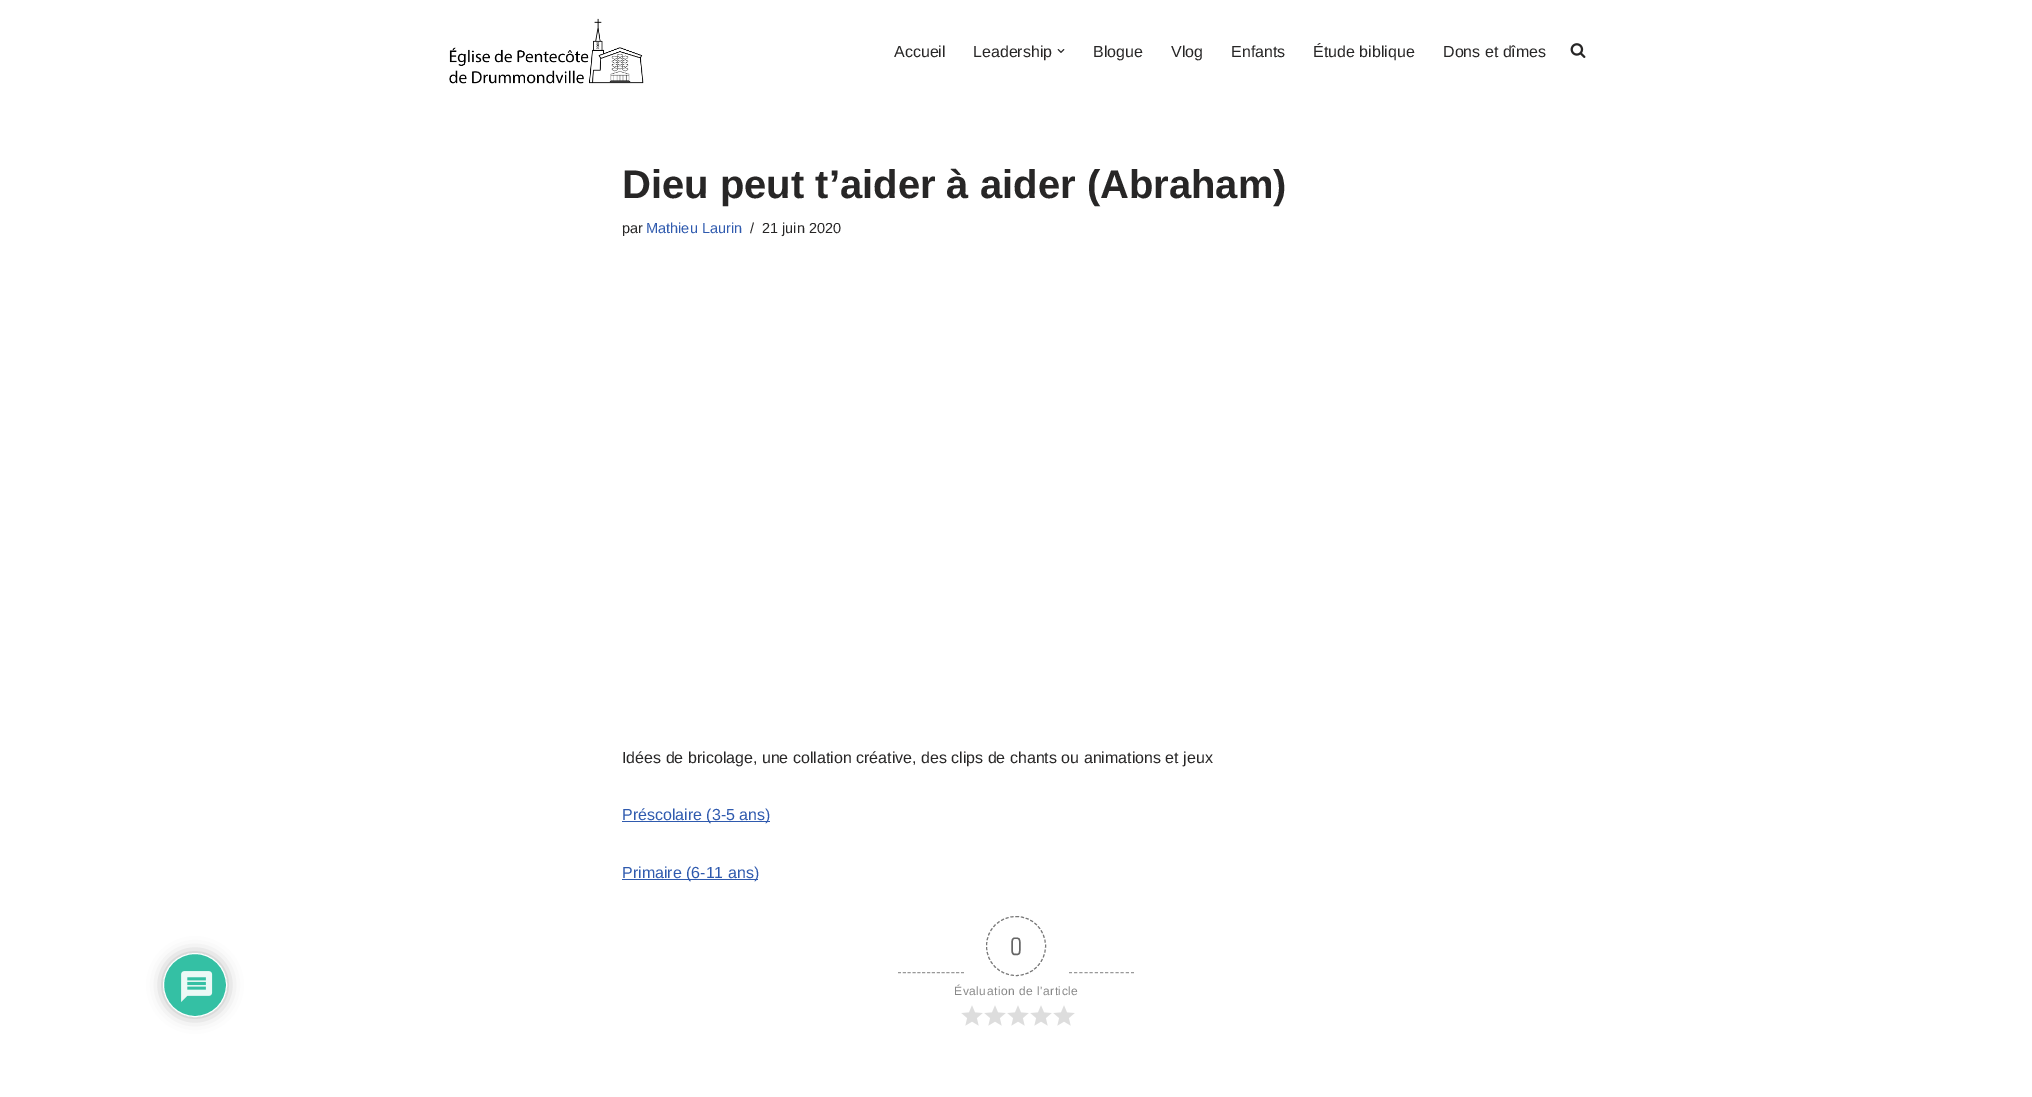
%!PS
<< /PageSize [2032 1097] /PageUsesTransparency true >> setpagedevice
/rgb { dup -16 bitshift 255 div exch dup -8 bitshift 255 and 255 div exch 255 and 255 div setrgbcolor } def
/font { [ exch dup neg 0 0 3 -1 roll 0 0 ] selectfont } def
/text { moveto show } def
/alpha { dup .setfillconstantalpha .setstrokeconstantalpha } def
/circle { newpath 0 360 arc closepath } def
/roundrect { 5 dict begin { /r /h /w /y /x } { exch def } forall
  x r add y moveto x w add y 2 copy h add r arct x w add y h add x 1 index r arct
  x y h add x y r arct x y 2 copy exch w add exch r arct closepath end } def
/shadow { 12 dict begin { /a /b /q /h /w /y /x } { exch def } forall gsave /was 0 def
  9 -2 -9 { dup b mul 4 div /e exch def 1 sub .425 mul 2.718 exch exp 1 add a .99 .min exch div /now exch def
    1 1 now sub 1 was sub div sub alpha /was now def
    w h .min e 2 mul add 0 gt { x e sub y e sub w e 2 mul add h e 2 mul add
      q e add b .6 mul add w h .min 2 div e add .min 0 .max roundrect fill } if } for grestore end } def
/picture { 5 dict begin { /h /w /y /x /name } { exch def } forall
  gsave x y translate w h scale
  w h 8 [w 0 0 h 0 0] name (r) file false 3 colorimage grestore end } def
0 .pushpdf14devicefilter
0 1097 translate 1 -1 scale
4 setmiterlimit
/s1 { /LiberationSans-Regular 16 font 16#272626 rgb } def
/s2 { /LiberationSans-Bold 40 font 16#272626 rgb } def
/s3 { /LiberationSans-Regular 14.5 font 16#272626 rgb } def
/s4 { /LiberationSans-Regular 14.5 font 16#2F5AAE rgb } def
/s5 { /LiberationSans-Regular 16 font 16#2F5AAE rgb } def
/s6 { /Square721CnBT-Regular 24 font 16#666666 rgb } def
16#FFFFFF rgb
0 0 2032 1097 rectfill
16#B3B3B3 rgb
163 953 64 64 32 7.5 1 shadow
16#34C0A4 rgb
195 985 31.5 circle gsave fill grestore
16#FFFFFF rgb
stroke
(pic1.raw) 181 971 32 31 picture
(pic2.raw) 449 18 195 66 picture
s1
(Accueil) 894 57 text
(Leadership) 973 57 text
(pic3.raw) 1057 49 8 4 picture
(Blogue) 1093 57 text
(Vlog) 1171 57 text
(Enfants) 1231 57 text
(Étude biblique) 1313 57 text
(Dons et dîmes) 1443 57 text
(pic4.raw) 1570 43 16 15 picture
s2
(Dieu peut t’aider à aider \(Abraham\)) 622 198 text
s3
(par) 622 233 text
s4
(Mathieu Laurin) 646 233 text
s3
(/) 750 233 text
(21 juin 2020) 762 233 text
s1
(Idées de bricolage, une collation créative, des clips de chants ou animations et jeux) 622 763 text
16#2F5AAE rgb
622 821 148 1 rectfill
(Préscolaire \(3-5 ans\)) 622 820 text
622 879 136 1 rectfill
(Primaire \(6-11 ans\)) 622 878 text
16#999999 rgb
[3 1.85] 0 setdash
898 972.5 moveto 964 972.5 lineto stroke
16#777777 rgb
[3 2] 0 setdash
1016 916.5 moveto 1032.5 916.5 1045.5 929.5 1045.5 946 curveto 1045.5 962.5 1032.5 975.5 1016 975.5 curveto 999.5 975.5 986.5 962.5 986.5 946 curveto 986.5 929.5 999.5 916.5 1016 916.5 curveto closepath stroke
s6
(0) 1010 955 text
/LiberationSans-Regular 12 font
16#888888 rgb
954 995 moveto 0.5 0 (Évaluation de l'article) ashow
(pic5.raw) 961 1005 22 21 picture
(pic5.raw) 984 1005 22 21 picture
(pic5.raw) 1007 1005 22 21 picture
(pic5.raw) 1030 1005 22 21 picture
(pic5.raw) 1053 1005 22 21 picture
16#999999 rgb
[3 2.17] 0 setdash
1069 972.5 moveto 1134 972.5 lineto stroke
.poppdf14devicefilter showpage
